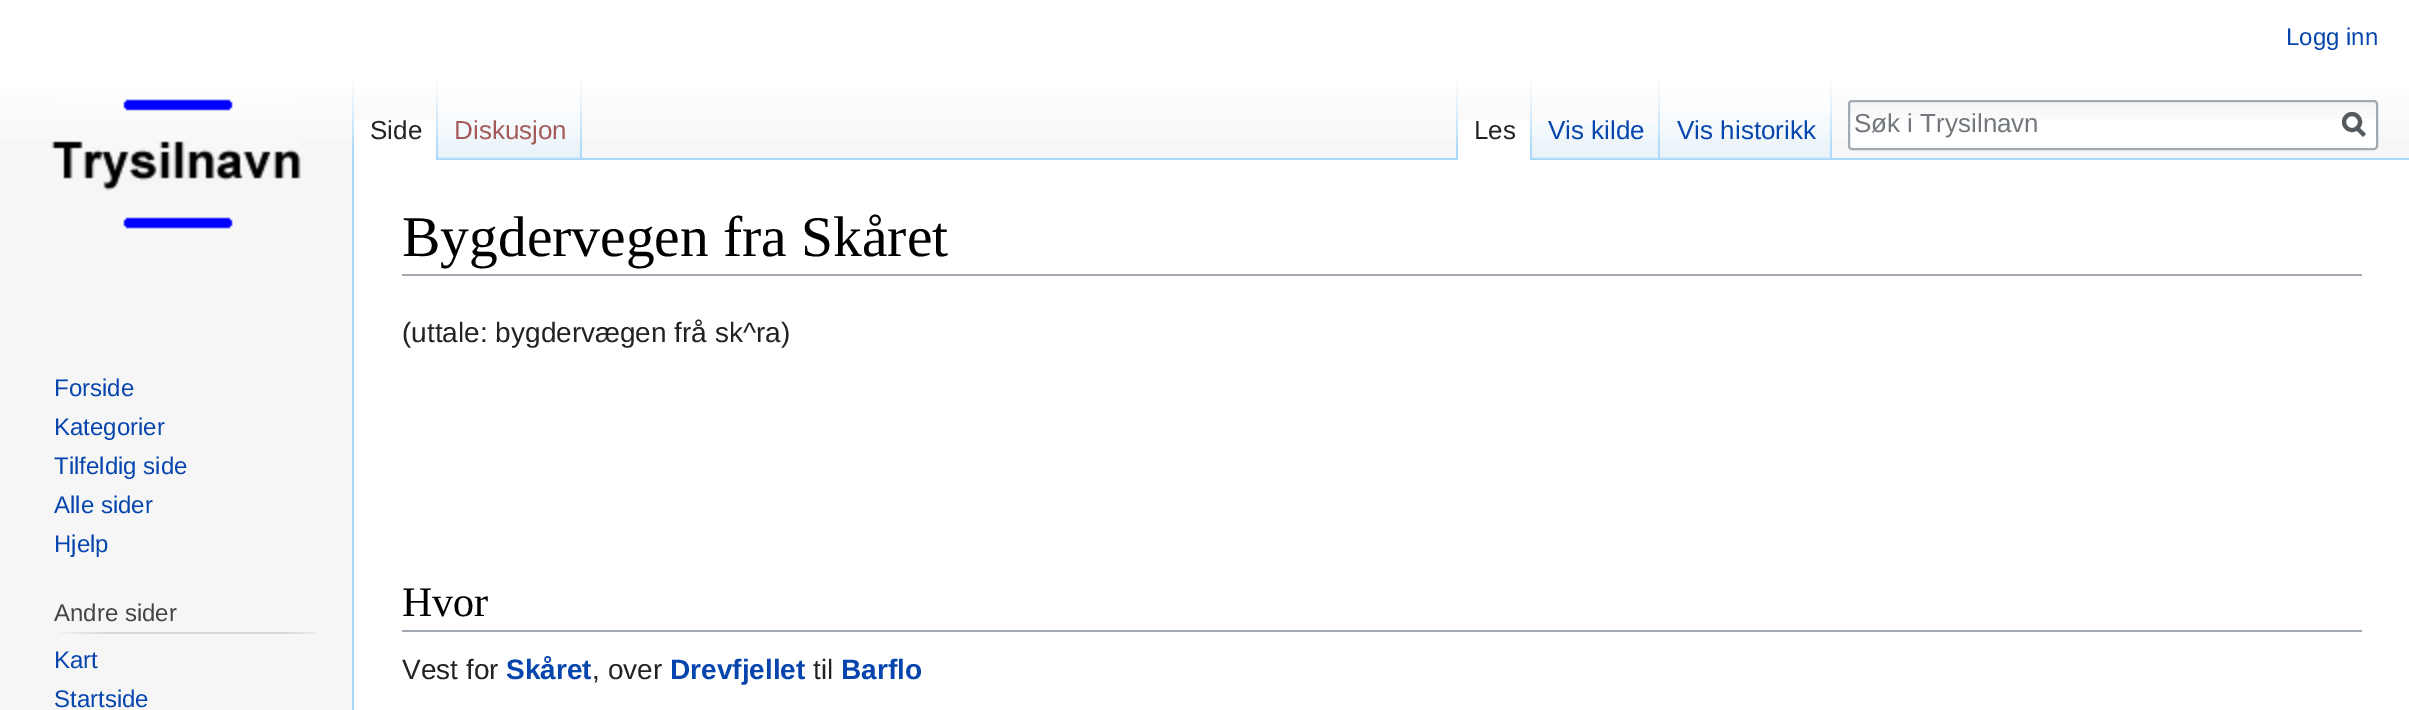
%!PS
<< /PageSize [2409 710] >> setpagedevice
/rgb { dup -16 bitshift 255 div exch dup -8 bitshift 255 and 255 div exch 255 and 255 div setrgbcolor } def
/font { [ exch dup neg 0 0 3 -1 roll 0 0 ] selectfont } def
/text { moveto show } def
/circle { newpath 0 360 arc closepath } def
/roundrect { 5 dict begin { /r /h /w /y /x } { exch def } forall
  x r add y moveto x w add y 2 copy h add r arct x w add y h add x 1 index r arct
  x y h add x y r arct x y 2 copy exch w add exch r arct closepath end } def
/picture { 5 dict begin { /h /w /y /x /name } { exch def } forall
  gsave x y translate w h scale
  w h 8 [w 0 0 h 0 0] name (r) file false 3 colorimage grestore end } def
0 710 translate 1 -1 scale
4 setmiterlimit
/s1 { /LiberationSans-Regular 24 font 16#0645AD rgb } def
/s2 { /LiberationSans-Regular 26 font 16#222222 rgb } def
/s3 { /LiberationSans-Regular 26 font 16#A55858 rgb } def
/s4 { /LiberationSans-Regular 26 font 16#0645AD rgb } def
/s5 { /LiberationSans-Regular 26 font 16#72777D rgb } def
/s6 { /LiberationSans-Regular 24 font 16#444444 rgb } def
/s7 { /LiberationSerif-Regular 57.5 font 16#000000 rgb } def
/s8 { /LiberationSans-Regular 28 font 16#222222 rgb } def
/s9 { /LiberationSerif-Regular 42 font 16#000000 rgb } def
/s10 { /LiberationSans-Bold 28 font 16#0645AD rgb } def
16#F6F6F6 rgb
0 0 2409 710 rectfill
gsave 0 0 moveto 2409 0 lineto 2409 138 lineto 0 138 lineto closepath clip newpath
<< /ShadingType 2 /ColorSpace /DeviceRGB /Coords [1205 0 1205 160] /Extend [true true] /Function << /FunctionType 3 /Domain [0 1] /Functions [<< /FunctionType 2 /Domain [0 1] /C0 [1 1 1] /C1 [1 1 1] /N 1 >> << /FunctionType 2 /Domain [0 1] /C0 [1 1 1] /C1 [0.965 0.965 0.965] /N 1 >>] /Bounds [0.5] /Encode [0 1 0 1] >> >> shfill grestore
s1
(Logg inn) 2286 45 text
(pic1.raw) 352 80 2 78 picture
16#FFFFFF rgb
354 120 82 40 rectfill
(pic2.raw) 436 80 2 80 picture
s2
(Side) 370 139 text
16#A7D7F9 rgb
438 158 1971 2 rectfill
(pic3.raw) 438 80 142 79 picture
(pic4.raw) 580 80 2 79 picture
s3
(Diskusjon) 454 139 text
(pic1.raw) 1456 80 2 78 picture
16#FFFFFF rgb
1458 120 72 40 rectfill
(pic2.raw) 1530 80 2 80 picture
s2
(Les) 1474 139 text
(pic5.raw) 1532 123 126 36 picture
(pic4.raw) 1658 80 2 79 picture
s4
(Vis kilde) 1548 139 text
(pic6.raw) 1660 80 170 79 picture
(pic4.raw) 1830 80 2 79 picture
(Vis historikk) 1677 139 text
16#FFFFFF rgb
1848 100 530 50 4 roundrect fill
(pic7.raw) 1848 102 530 17 picture
16#A2A9B1 rgb
2 setlinewidth
1849 101 528 48 3 roundrect stroke
s5
(Søk i Trysilnavn) 1854 132 text
16#54595D rgb
4 setlinewidth
2364.5 135.5 moveto 2356.5 127.5 lineto stroke
2352 122 8 circle stroke
(pic8.raw) 51 99 250 130 picture
s1
(Forside) 54 396 text
(Kategorier) 54 435 text
(Tilfeldig side) 54 474 text
(Alle sider) 54 513 text
(Hjelp) 54 552 text
s6
(Andre sider) 54 621 text
(pic9.raw) 59 632 257 2 picture
s1
(Kart) 54 668 text
(Startside) 54 707 text
16#FFFFFF rgb
354 160 2055 550 rectfill
16#A7D7F9 rgb
352 158 2 552 rectfill
16#A2A9B1 rgb
402 274 1960 2 rectfill
s7
(Bygdervegen fra Skåret) 402 256 text
s8
(\(uttale: bygdervægen frå sk^ra\)) 402 342 text
16#A2A9B1 rgb
402 630 1960 2 rectfill
s9
(Hvor) 402 616 text
s8
(Vest for) 402 679 text
s10
(Skåret) 506 679 text
s8
(, over) 592 679 text
s10
(Drevfjellet) 670 679 text
s8
(til) 813 679 text
s10
(Barflo) 841 679 text
showpage
